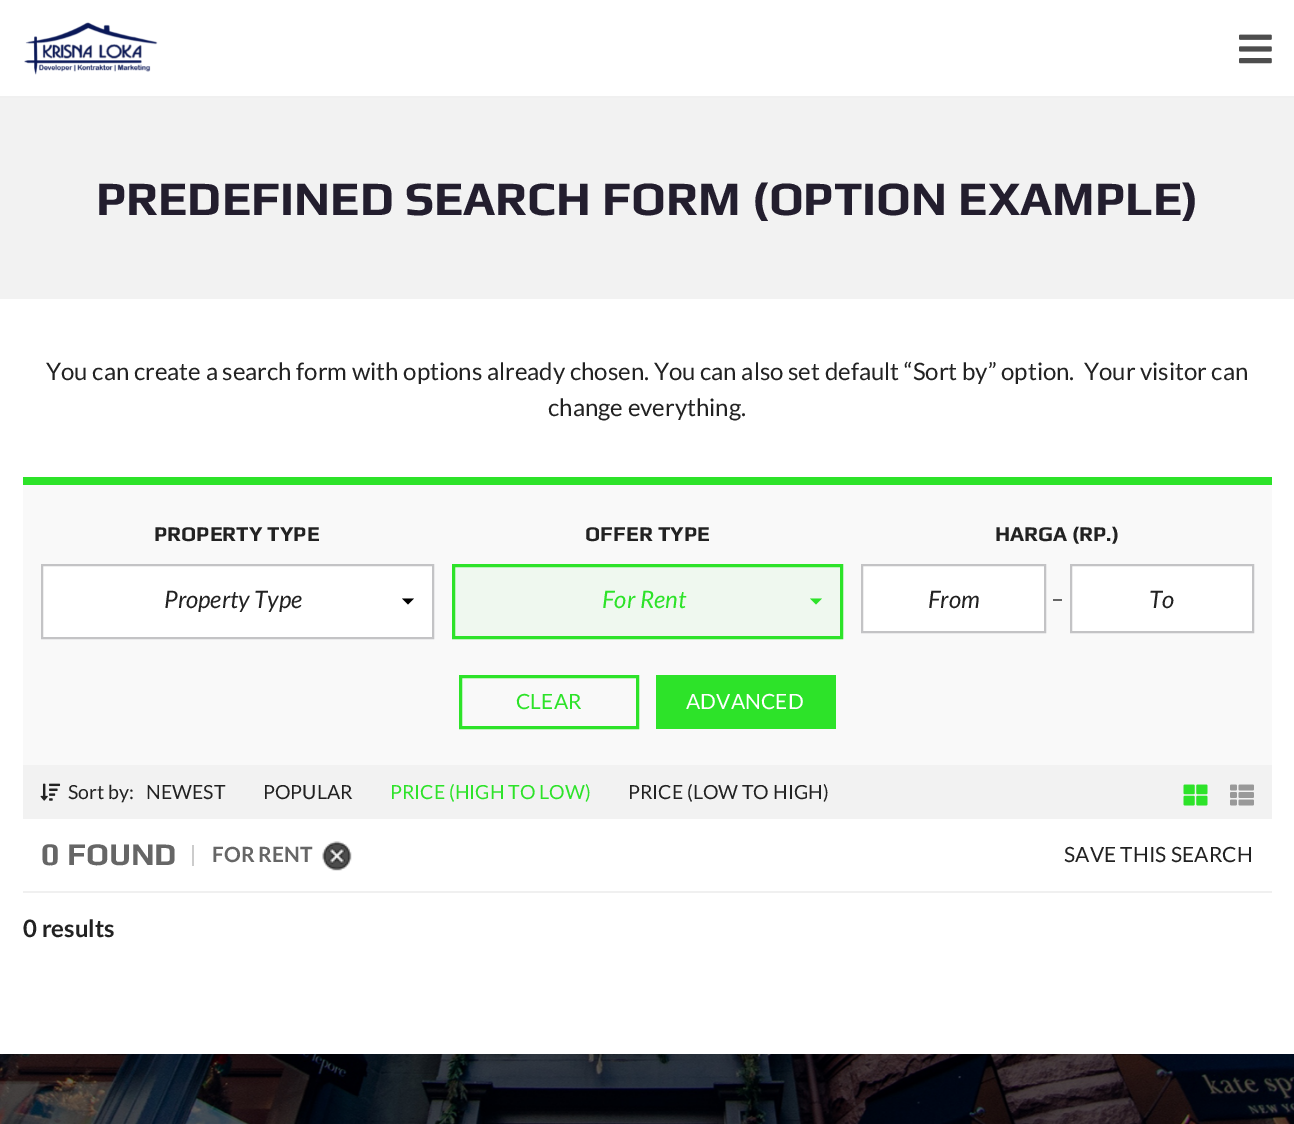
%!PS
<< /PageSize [1294 1124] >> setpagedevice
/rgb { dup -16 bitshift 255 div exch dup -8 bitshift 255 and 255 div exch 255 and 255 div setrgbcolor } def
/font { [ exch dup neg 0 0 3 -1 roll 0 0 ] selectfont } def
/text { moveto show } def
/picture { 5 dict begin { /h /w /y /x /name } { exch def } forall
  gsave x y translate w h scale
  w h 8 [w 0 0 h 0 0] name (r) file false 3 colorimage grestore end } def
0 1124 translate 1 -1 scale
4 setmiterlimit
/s1 { /Play-Bold 48 font 16#231E2E rgb } def
/s2 { /Lato-Regular 24 font 16#222222 rgb } def
/s3 { /Play-Bold 21 font 16#222222 rgb } def
/s4 { /Lato-Italic 24 font 16#222222 rgb } def
/s5 { /Lato-Italic 24 font 16#2DE329 rgb } def
/s6 { /Lato-Regular 19.5 font 16#222222 rgb } def
/s7 { /Lato-Regular 19.5 font 16#2DE329 rgb } def
/s8 { /Play-Bold 31.5 font 16#666666 rgb } def
/s9 { /Lato-Bold 21 font 16#666666 rgb } def
/s10 { /Lato-Bold 24 font 16#222222 rgb } def
16#FFFFFF rgb
0 0 1294 1124 rectfill
(pic1.raw) 24 22 134 53 picture
(pic2.raw) 1239 34 33 30 picture
16#F0F0F0 rgb
0 96 1294 2 rectfill
16#F2F2F2 rgb
0 98 1294 201 rectfill
s1
(PREDEFINED SEARCH FORM \(OPTION EXAMPLE\)) 96 215 text
s2
(You can create a search form with options already chosen. You can also set default “Sort by” option.  Your visitor can) 46 380 text
(change everything.) 548 416 text
16#F9F9F9 rgb
23 485 1249 280 rectfill
16#2DE329 rgb
23 477 1249 8 rectfill
s3
(PROPERTY TYPE) 154 541 text
16#FFFFFF rgb
42 565 moveto 433 565 lineto 433 638 lineto 42 638 lineto closepath gsave fill grestore
16#C3C3C5 rgb
2 setlinewidth
stroke
s4
(Property Type) 164 608 text
16#000000 rgb
402 598.5 moveto 414 598.5 lineto 408 604.5 lineto closepath fill
s3
(OFFER TYPE) 585 541 text
16#EFF8EF rgb
453.5 565.5 moveto 841.5 565.5 lineto 841.5 637.5 lineto 453.5 637.5 lineto closepath gsave fill grestore
16#2DE329 rgb
3 setlinewidth
stroke
s5
(For Rent) 602 608 text
810 598.5 moveto 822 598.5 lineto 816 604.5 lineto closepath fill
s3
(HARGA \(RP.\)) 995 541 text
16#FFFFFF rgb
862 565 moveto 1045 565 lineto 1045 632 lineto 862 632 lineto closepath gsave fill grestore
16#C3C3C5 rgb
2 setlinewidth
stroke
s4
(From) 928 608 text
16#666666 rgb
1053 599 9 2 rectfill
16#FFFFFF rgb
1071 565 moveto 1253 565 lineto 1253 632 lineto 1071 632 lineto closepath gsave fill grestore
16#C3C3C5 rgb
stroke
s4
(To) 1149 608 text
16#2DE329 rgb
3 setlinewidth
460.5 676.5 177 51 rectstroke
/Lato-Regular 21 font
516 709 moveto 0.1 0 (CLEAR) ashow
656 675 180 54 rectfill
16#FFFFFF rgb
686 709 moveto 0.1 0 (ADVANCED) ashow
16#F2F2F2 rgb
23 765 1249 54 rectfill
(pic3.raw) 40 783 21 18 picture
s6
(Sort by:) 68 799 text
(NEWEST) 146 799 text
(POPULAR) 263 799 text
s7
(PRICE \(HIGH TO LOW\)) 390 799 text
s6
(PRICE \(LOW TO HIGH\)) 628 799 text
(pic4.raw) 1183 784 25 22 picture
(pic5.raw) 1230 784 24 22 picture
s8
(0 FOUND) 41 865 text
16#CCCCCC rgb
192 845 2 21 rectfill
s9
(FOR RENT) 212 862 text
(pic6.raw) 322 841 30 30 picture
/Lato-Regular 21 font
16#222222 rgb
1064 862 moveto 0.1 0 (SAVE THIS SEARCH) ashow
16#F0F0F0 rgb
23 891 1249 2 rectfill
s10
(0 results) 23 937 text
(pic7.raw) 0 1054 1294 70 picture
showpage
